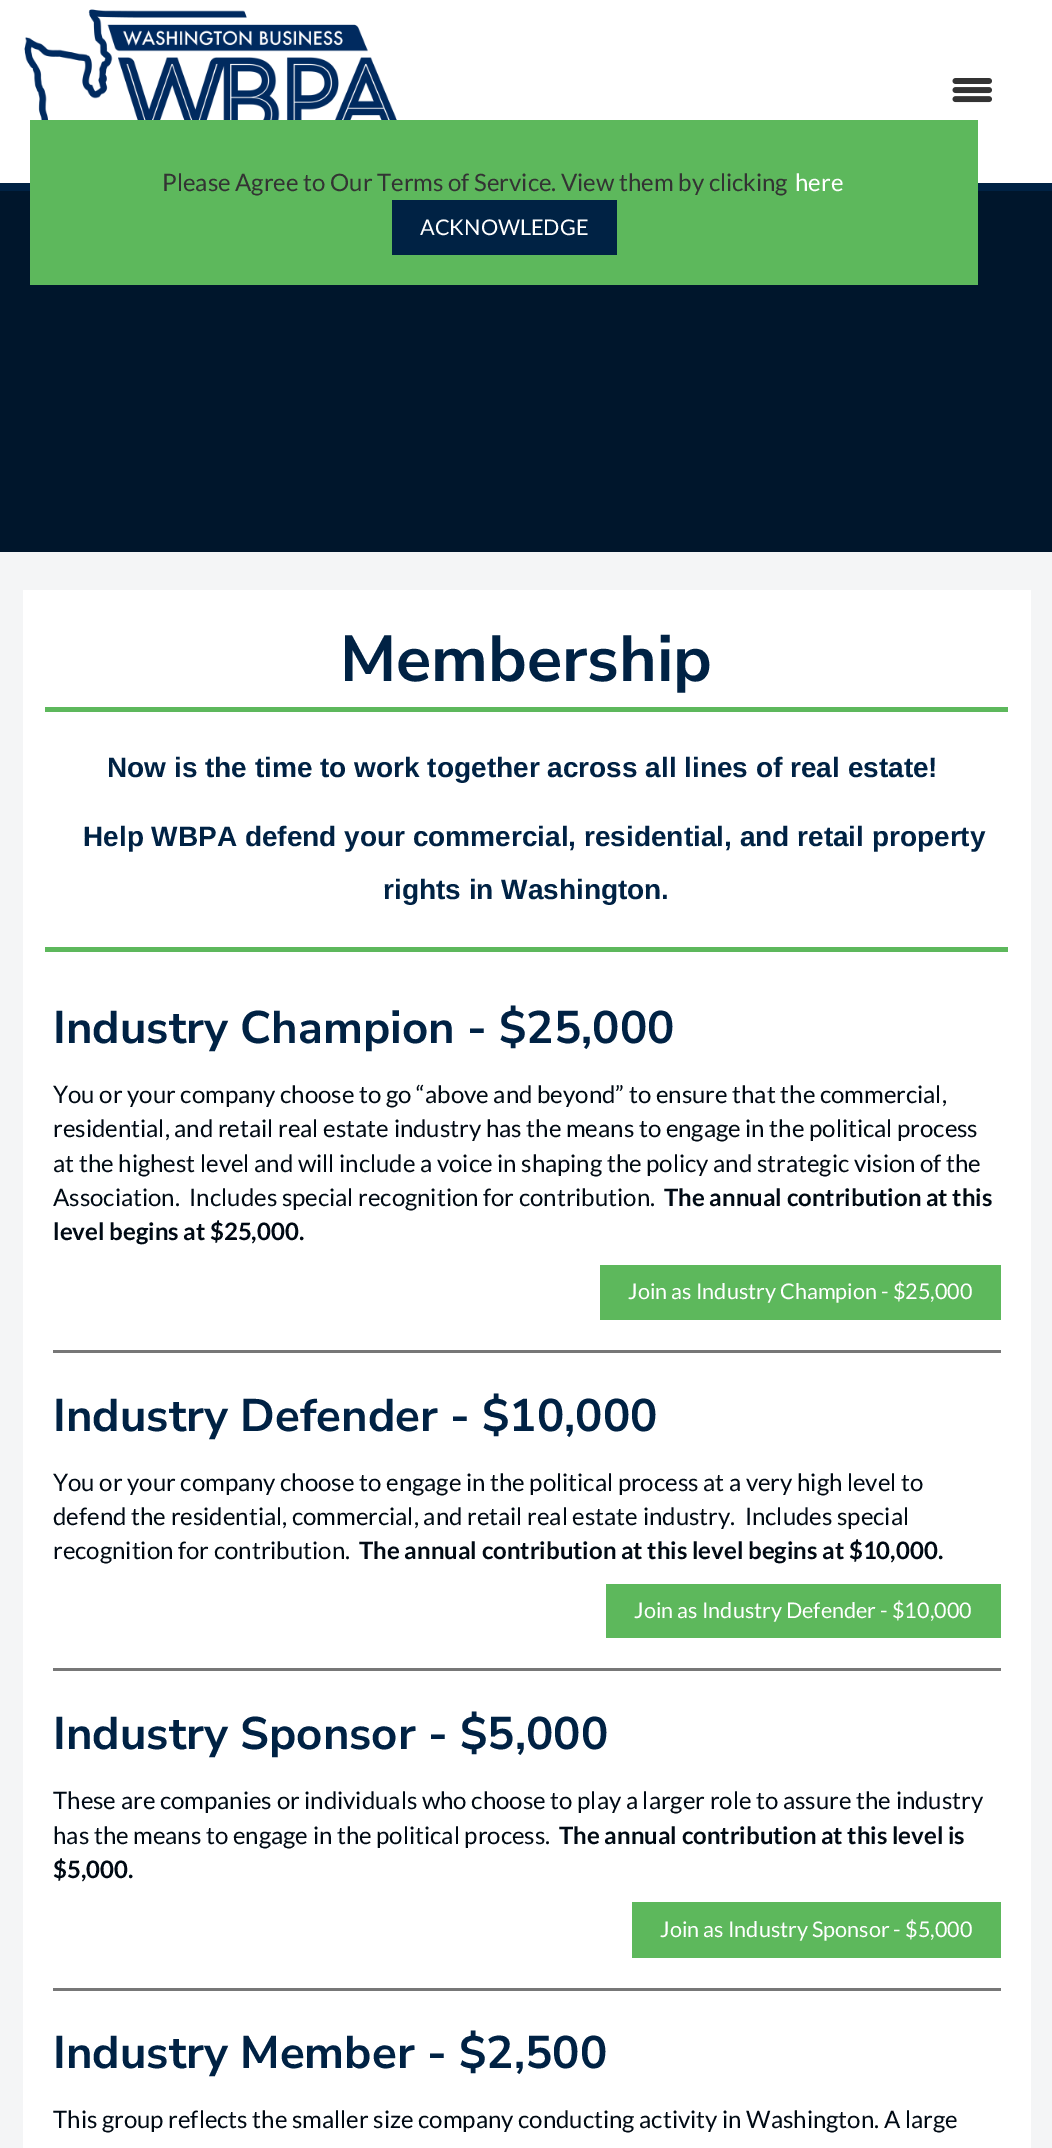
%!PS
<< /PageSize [1052 2148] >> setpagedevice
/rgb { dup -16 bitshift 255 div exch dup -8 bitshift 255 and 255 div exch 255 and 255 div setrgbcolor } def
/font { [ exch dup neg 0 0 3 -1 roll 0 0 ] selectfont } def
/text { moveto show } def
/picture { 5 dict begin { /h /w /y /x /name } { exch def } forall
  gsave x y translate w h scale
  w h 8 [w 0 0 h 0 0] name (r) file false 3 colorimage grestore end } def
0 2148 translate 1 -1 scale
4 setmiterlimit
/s1 { /Lato-Regular 24 font 16#333333 rgb } def
/s2 { /Lato-Regular 24 font 16#FFFFFF rgb } def
/s3 { /Lato-Regular 21.6 font 16#FFFFFF rgb } def
/s4 { /NunitoSans-Bold 64.75 font 16#002244 rgb } def
/s5 { /LiberationSans-Bold 28 font 16#002244 rgb } def
/s6 { /NunitoSans-Bold 45.6 font 16#002244 rgb } def
/s7 { /Lato-Regular 24 font 16#000A14 rgb } def
/s8 { /Lato-Bold 24 font 16#000A14 rgb } def
16#F4F5F6 rgb
0 0 1052 2148 rectfill
16#FFFFFF rgb
0 0 1052 183 rectfill
(pic1.raw) 24 9 373 111 picture
(pic2.raw) 952 78 40 25 picture
16#002244 rgb
0 183 1052 8 rectfill
16#00162C rgb
0 191 1052 361 rectfill
16#5DB85C rgb
30 120 948 165 rectfill
s1
(Please Agree to Our Terms of Service. View them by clicking) 162 191 text
s2
(here) 795 191 text
16#002244 rgb
392 200 225 55 rectfill
s3
(ACKNOWLEDGE) 420 235 text
23 590 1008 1558 rectfill
16#5DB85C rgb
45 707 963 5 rectfill
s4
(Membership) 340 681 text
16#5DB85C rgb
45 947 963 5 rectfill
s5
(Now is the time to work together across all lines of real estate!) 107 777 text
(Help WBPA defend your commercial, residential, and retail property) 83 846 text
(rights in Washington.) 383 899 text
16#777777 rgb
53 1350 948 3 rectfill
s6
(Industry Champion - $25,000) 53 1043 text
s7
(You or your company choose to go “above and beyond” to ensure that the commercial,) 53 1103 text
(residential, and retail real estate industry has the means to engage in the political process) 53 1137 text
(at the highest level and will include a voice in shaping the policy and strategic vision of the) 53 1172 text
(Association.  Includes special recognition for contribution.) 53 1206 text
s8
(The annual contribution at this) 664 1206 text
(level begins at $25,000.) 53 1240 text
16#5DB85C rgb
600 1265 401 55 rectfill
s3
(Join as Industry Champion - $25,000) 628 1299 text
16#777777 rgb
53 1668 948 3 rectfill
s6
(Industry Defender - $10,000) 53 1431 text
s7
(You or your company choose to engage in the political process at a very high level to) 53 1491 text
(defend the residential, commercial, and retail real estate industry.  Includes special) 53 1525 text
(recognition for contribution.) 53 1559 text
s8
(The annual contribution at this level begins at $10,000.) 359 1559 text
16#5DB85C rgb
606 1584 395 54 rectfill
s3
(Join as Industry Defender - $10,000) 634 1618 text
16#777777 rgb
53 1988 948 3 rectfill
s6
(Industry Sponsor - $5,000) 53 1749 text
s7
(These are companies or individuals who choose to play a larger role to assure the industry) 53 1809 text
(has the means to engage in the political process.) 53 1844 text
s8
(The annual contribution at this level is) 559 1844 text
($5,000.) 53 1878 text
16#5DB85C rgb
632 1902 369 56 rectfill
s3
(Join as Industry Sponsor - $5,000) 660 1937 text
s6
(Industry Member - $2,500) 53 2068 text
s7
(This group reflects the smaller size company conducting activity in Washington. A large) 53 2128 text
showpage
